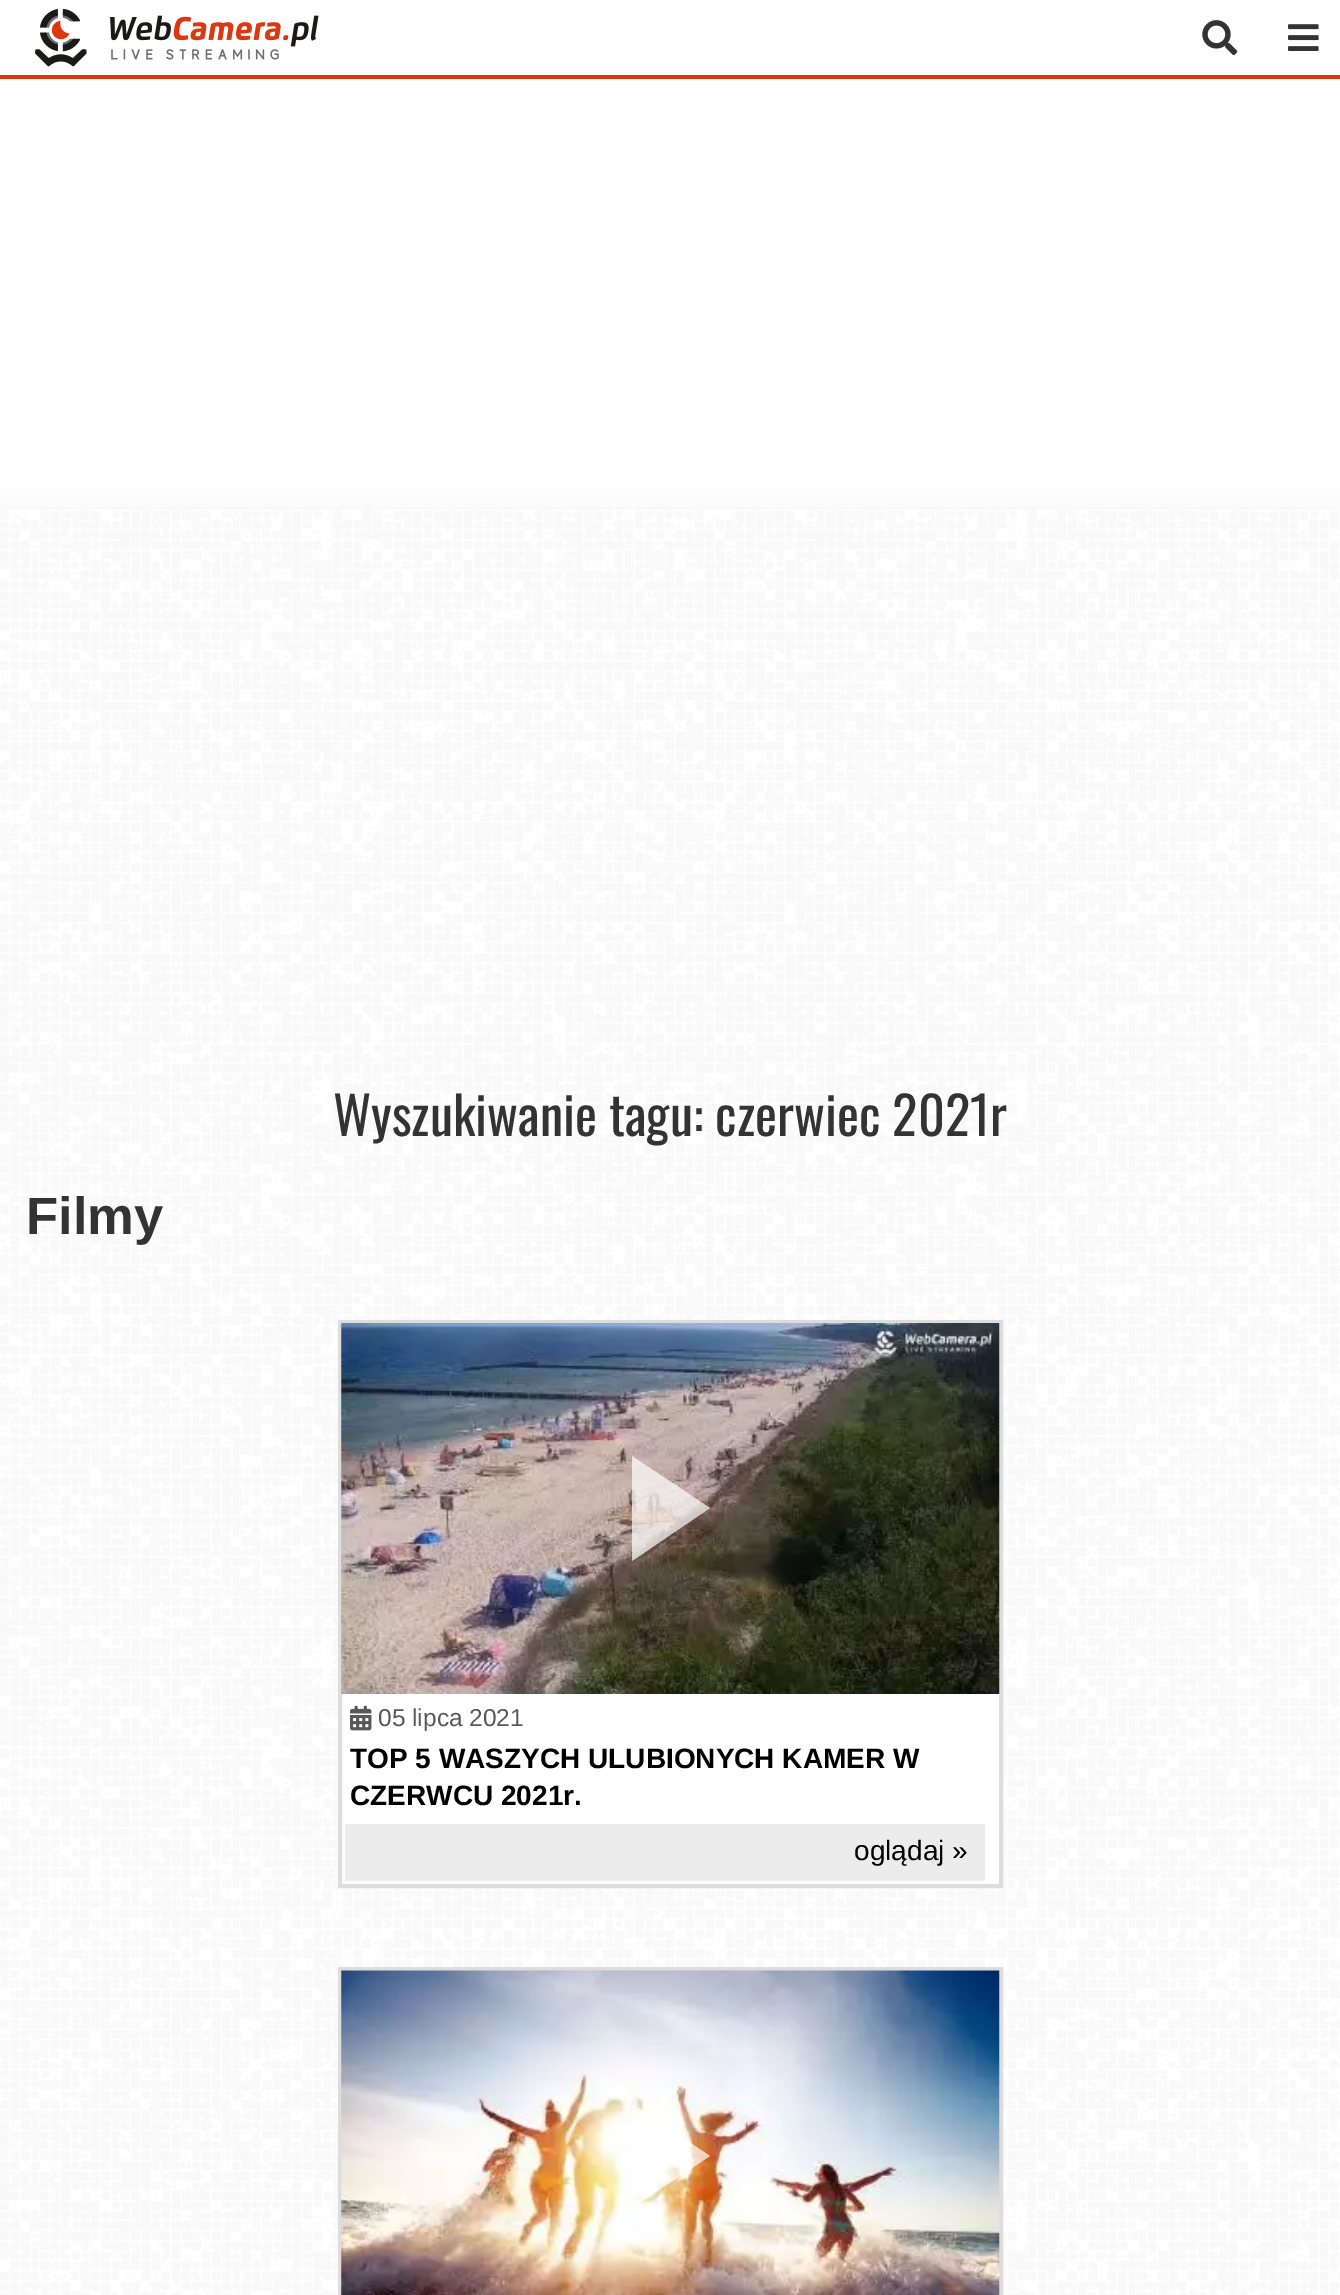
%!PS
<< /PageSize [1340 2295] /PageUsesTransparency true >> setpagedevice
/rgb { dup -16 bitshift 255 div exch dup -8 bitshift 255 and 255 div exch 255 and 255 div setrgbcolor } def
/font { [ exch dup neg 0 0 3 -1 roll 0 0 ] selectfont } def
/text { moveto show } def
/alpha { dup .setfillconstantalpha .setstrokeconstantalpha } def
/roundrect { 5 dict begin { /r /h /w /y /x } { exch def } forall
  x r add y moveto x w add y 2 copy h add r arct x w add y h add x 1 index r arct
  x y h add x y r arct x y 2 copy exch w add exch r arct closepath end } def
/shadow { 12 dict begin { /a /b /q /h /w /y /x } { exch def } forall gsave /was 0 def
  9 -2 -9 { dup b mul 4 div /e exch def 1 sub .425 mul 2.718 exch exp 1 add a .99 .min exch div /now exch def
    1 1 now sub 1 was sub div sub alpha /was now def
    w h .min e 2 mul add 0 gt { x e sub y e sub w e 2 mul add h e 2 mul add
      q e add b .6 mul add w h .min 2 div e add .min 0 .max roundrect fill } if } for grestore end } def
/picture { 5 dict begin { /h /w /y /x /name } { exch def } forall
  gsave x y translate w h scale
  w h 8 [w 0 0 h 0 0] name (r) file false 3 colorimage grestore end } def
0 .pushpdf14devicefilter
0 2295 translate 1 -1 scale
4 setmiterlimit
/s1 { /Oswald-Regular 52.5 font 16#333333 rgb } def
/s2 { /LiberationSans-Bold 52.5 font 16#333333 rgb } def
/s3 { /LiberationSans-Regular 24.5 font 16#585858 rgb } def
/s4 { /LiberationSans-Bold 28 font 16#000000 rgb } def
/s5 { /LiberationSans-Regular 28 font 16#000000 rgb } def
16#FFFFFF rgb
0 0 1340 2295 rectfill
16#DB3810 rgb
0 75 1340 4 rectfill
(pic1.raw) 35 9 284 58 picture
(pic2.raw) 1202 20 36 36 picture
(pic3.raw) 1288 24 31 27 picture
16#959DA5 rgb
0 523 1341 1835 0 21 0.2 shadow
(pic4.raw) 0 509 1340 1786 picture
s1
(Wyszukiwanie tagu: czerwiec 2021r) 333 1136 text
s2
(Filmy) 26 1234 text
16#FFFFFF rgb
342 1694 657 190 rectfill
16#DDDDDD rgb
4 setlinewidth
340 1322 661 564 rectstroke
(pic5.raw) 341 1323 659 371 picture
0.7 alpha
16#FFFFFF rgb
632 1456 moveto 710 1508 lineto 632 1561 lineto closepath fill
1 alpha
(pic6.raw) 350 1705 22 26 picture
s3
(05 lipca 2021) 378 1726 text
s4
(TOP 5 WASZYCH ULUBIONYCH KAMER W) 350 1768 text
(CZERWCU 2021r.) 350 1805 text
16#ECECEC rgb
345 1824 640 57 rectfill
s5
(oglądaj ») 854 1860 text
16#DDDDDD rgb
340 1969 661 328 rectstroke
(pic7.raw) 341 1970 659 325 picture
0.7 alpha
16#FFFFFF rgb
632 2104 moveto 710 2156 lineto 632 2208 lineto closepath fill
.poppdf14devicefilter showpage
